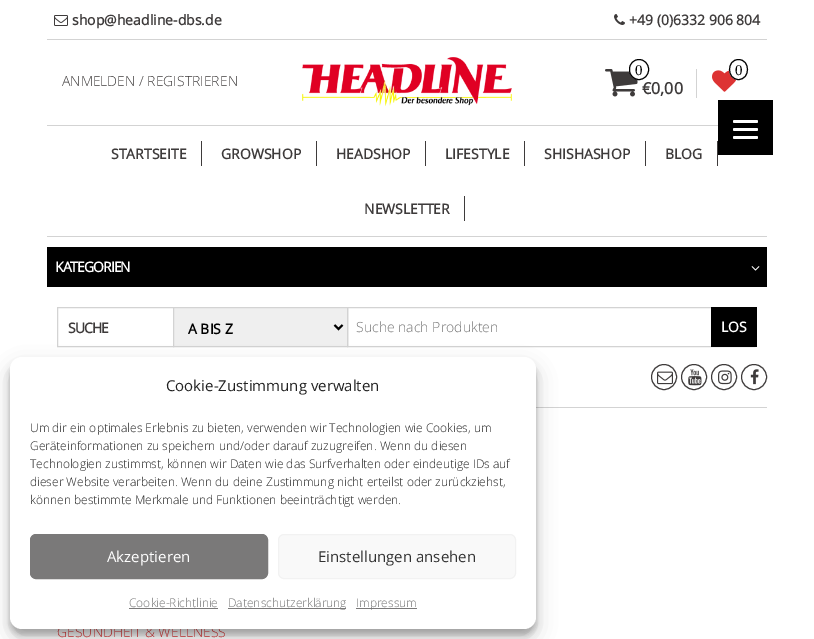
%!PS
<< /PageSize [814 639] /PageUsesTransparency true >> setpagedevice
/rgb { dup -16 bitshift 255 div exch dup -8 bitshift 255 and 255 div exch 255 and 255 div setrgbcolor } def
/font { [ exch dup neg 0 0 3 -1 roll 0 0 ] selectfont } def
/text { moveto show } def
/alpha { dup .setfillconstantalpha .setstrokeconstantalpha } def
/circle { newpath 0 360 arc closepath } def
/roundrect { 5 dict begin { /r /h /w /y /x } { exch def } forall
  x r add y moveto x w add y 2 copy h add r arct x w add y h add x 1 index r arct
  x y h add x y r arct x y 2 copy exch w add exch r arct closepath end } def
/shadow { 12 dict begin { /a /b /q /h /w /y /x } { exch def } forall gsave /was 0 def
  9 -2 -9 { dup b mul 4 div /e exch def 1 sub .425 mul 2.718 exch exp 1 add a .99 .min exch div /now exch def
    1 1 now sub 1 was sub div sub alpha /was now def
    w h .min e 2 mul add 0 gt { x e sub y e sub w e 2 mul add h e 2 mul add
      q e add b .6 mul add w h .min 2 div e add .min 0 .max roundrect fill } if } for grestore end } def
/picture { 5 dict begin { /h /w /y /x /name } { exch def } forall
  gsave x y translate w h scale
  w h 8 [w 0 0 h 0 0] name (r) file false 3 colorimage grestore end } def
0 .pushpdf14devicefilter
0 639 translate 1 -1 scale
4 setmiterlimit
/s1 { /OpenSans-Bold 14 font 16#3E3B3B rgb } def
/s2 { /OpenSans-Light 14 font 16#3E3B3B rgb } def
/s3 { /LiberationSerif-Regular 15 font 16#000000 rgb } def
/s4 { /OpenSans-Bold 16 font 16#3E3B3B rgb } def
/s5 { /OpenSans-Bold 14 font 16#000000 rgb } def
/s6 { /OpenSans-Light 14 font 16#757575 rgb } def
/s7 { /OpenSans-Bold 14 font 16#FFFFFF rgb } def
/s8 { /OpenSans-Light 14 font 16#DD3333 rgb } def
/s9 { /OpenSans-Regular 15 font 16#222222 rgb } def
/s10 { /OpenSans-Light 12 font 16#222222 rgb } def
/s11 { /OpenSans-Regular 15 font 16#FFFFFF rgb } def
/s12 { /OpenSans-Regular 15 font 16#333333 rgb } def
/s13 { /OpenSans-Light 12 font 16#757575 rgb } def
16#FFFFFF rgb
0 0 814 639 rectfill
16#D3D3D3 rgb
47 39 720 1 rectfill
(pic1.raw) 54 15 14 11 picture
s1
(shop@headline-dbs.de) 72 25 text
(pic2.raw) 614 14 11 11 picture
(+49 \(0\)6332 906 804) 629 25 text
s2
(ANMELDEN / REGISTRIEREN) 62 86 text
(pic3.raw) 302 57 210 49 picture
(pic4.raw) 605 69 33 28 picture
16#FFFFFF rgb
629.5 59.5 19 20 9.5 roundrect gsave fill grestore
16#000000 rgb
stroke
s3
(0) 635 75 text
s4
(€0,00) 642 94 text
16#D3D3D3 rgb
696 69 1 29 rectfill
(pic5.raw) 712 70 25 22 picture
16#FFFFFF rgb
738.5 59 moveto 743.5 59 748 63.5 748 69.5 curveto 748 75.5 743.5 80 738.5 80 curveto 733.5 80 729 75.5 729 69.5 curveto 729 63.5 733.5 59 738.5 59 curveto closepath fill
16#000000 rgb
738.5 59.5 moveto 750.5 59.5 750.5 79.5 738.5 79.5 curveto 726.5 79.5 726.5 59.5 738.5 59.5 curveto closepath stroke
s3
(0) 735 75 text
16#D3D3D3 rgb
47 125 671 1 rectfill
47 236 720 1 rectfill
16#3E3B3B rgb
201 141 1 25 rectfill
s1
(STARTSEITE) 111 159 text
316 141 1 25 rectfill
(GROWSHOP) 221 159 text
425 141 1 25 rectfill
(HEADSHOP) 336 159 text
524 141 1 25 rectfill
(LIFESTYLE) 445 159 text
645 141 1 25 rectfill
(SHISHASHOP) 544 159 text
717 141 1 25 rectfill
(BLOG) 665 159 text
464 196 1 25 rectfill
(NEWSLETTER) 364 214 text
16#D3D3D3 rgb
536 407 231 1 rectfill
16#000000 rgb
47 247 720 40 rectfill
16#FFFFFF rgb
55 272 moveto -1 0 (KATEGORIEN) ashow
(pic6.raw) 751 266 9 5 picture
16#D3D3D3 rgb
57.5 307.5 116 39 rectstroke
16#3E3B3B rgb
68 333 moveto -1 0 (SUCHE) ashow
16#EFEFEF rgb
173.5 307.5 moveto 347.5 307.5 lineto 347.5 346.5 lineto 173.5 346.5 lineto closepath gsave fill grestore
16#D3D3D3 rgb
stroke
16#000000 rgb
2 setlinewidth
334.5 325 moveto 338.5 329 lineto 342.5 325 lineto stroke
(A BIS Z) 188 334 text
16#D3D3D3 rgb
1 setlinewidth
347.5 307.5 407 39 rectstroke
s6
(Suche nach Produkten) 356 332 text
16#000000 rgb
711 307 46 40 rectfill
s7
(LOS) 721 332 text
16#3E3B3B rgb
664 377 12.5 circle stroke
(pic7.raw) 657 371 16 14 picture
694 377 12.5 circle stroke
(pic8.raw) 688 369 14 17 picture
724 377 12.5 circle stroke
(pic9.raw) 718 370 14 15 picture
754 377 12.5 circle stroke
(pic10.raw) 750 369 9 16 picture
s8
(GESUNDHEIT & WELLNESS) 57 637 text
16#000000 rgb
718 100 55 55 rectfill
16#FFFFFF rgb
733 128 25 3 1.5 roundrect fill
733 120 25 3 1.5 roundrect fill
733 136 25 3 1.5 roundrect fill
16#000000 rgb
10 363 526 272 12 3 0.23 shadow
10 367 526 272 12 10 0.19 shadow
16#FFFFFF rgb
10 357 526 272 12 roundrect fill
s9
(Cookie-Zustimmung verwalten) 166 391 text
s10
(Um dir ein optimales Erlebnis zu bieten, verwenden wir Technologien wie Cookies, um) 30 432 text
(Geräteinformationen zu speichern und/oder darauf zuzugreifen. Wenn du diesen) 30 450 text
(Technologien zustimmst, können wir Daten wie das Surfverhalten oder eindeutige IDs auf) 30 468 text
(dieser Website verarbeiten. Wenn du deine Zustimmung nicht erteilst oder zurückziehst,) 30 486 text
(können bestimmte Merkmale und Funktionen beeinträchtigt werden.) 30 504 text
16#7A7979 rgb
30.5 534.5 237 44 5.5 roundrect gsave fill grestore
stroke
s11
(Akzeptieren) 107 562 text
16#F9F9F9 rgb
278.5 534.5 237 44 5.5 roundrect gsave fill grestore
16#F2F2F2 rgb
stroke
s12
(Einstellungen ansehen) 318 562 text
s13
(Cookie-Richtlinie) 129 607 text
16#7A7979 rgb
129 608 89 1 rectfill
228 608 118 1 rectfill
s13
(Datenschutzerklärung) 228 607 text
16#7A7979 rgb
356 608 61 1 rectfill
s13
(Impressum) 356 607 text
.poppdf14devicefilter showpage
